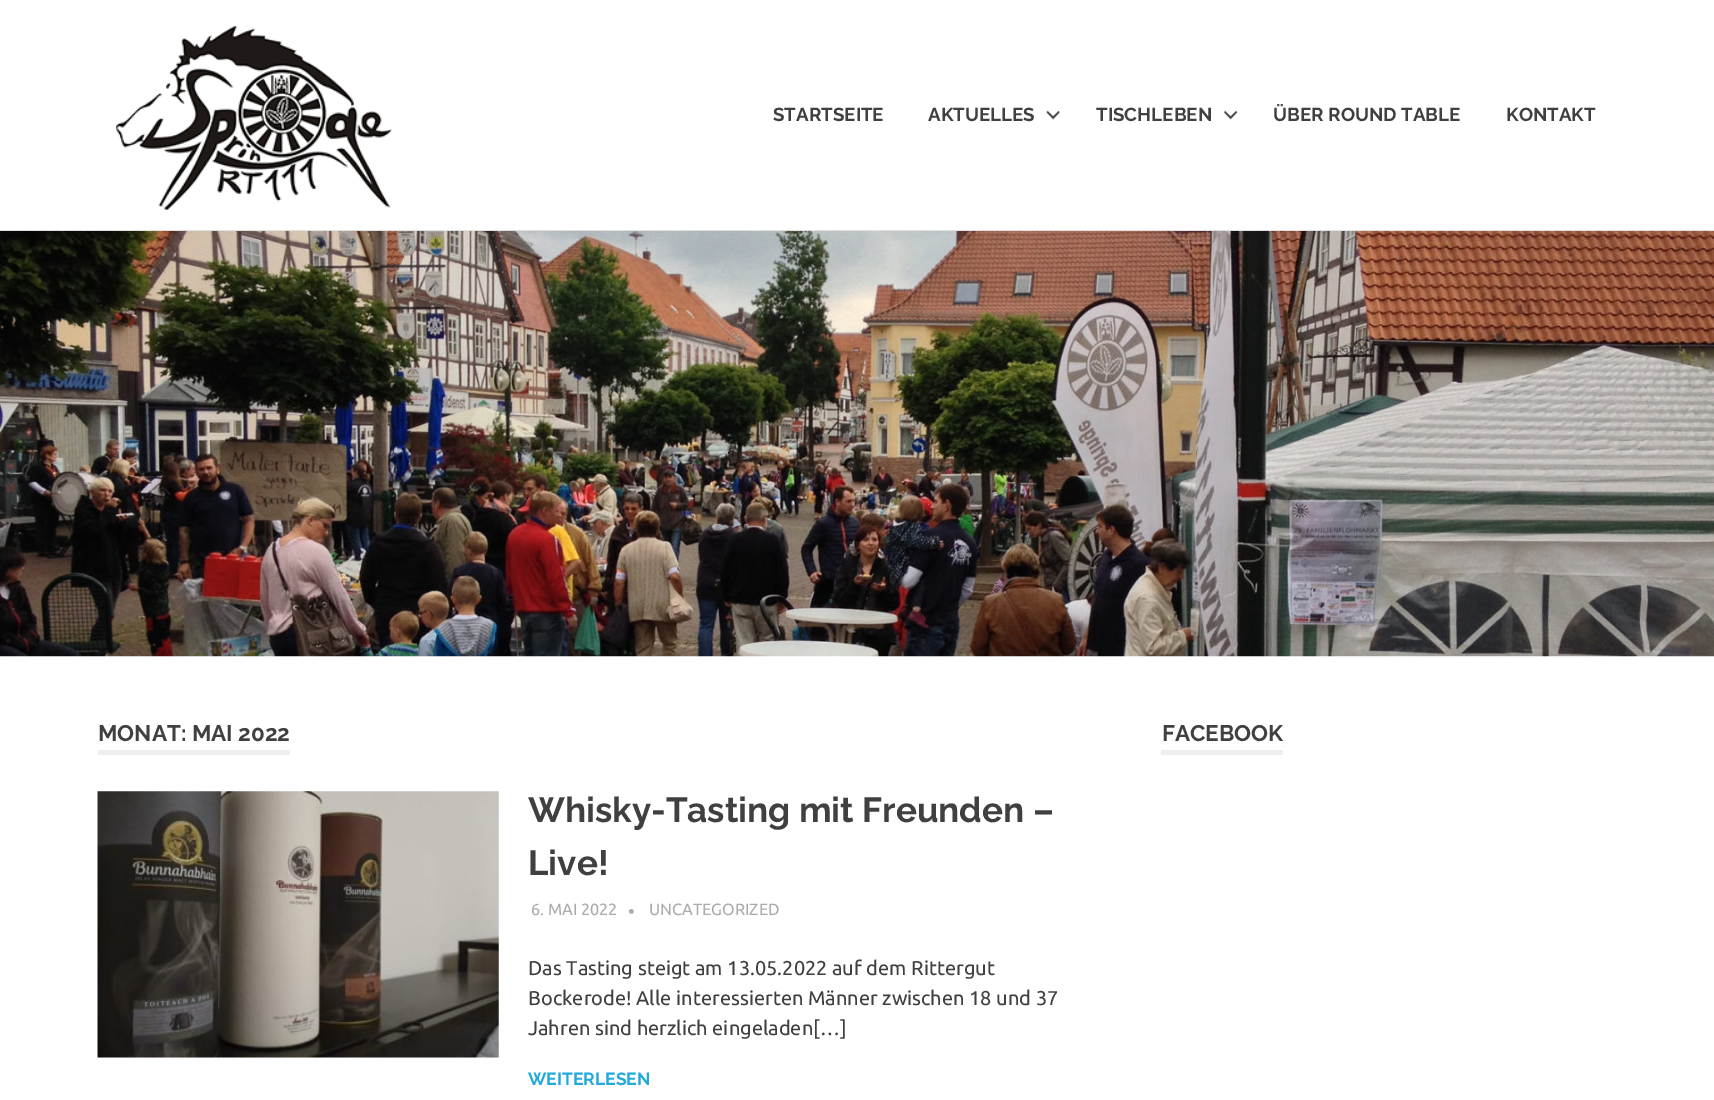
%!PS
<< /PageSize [1714 1100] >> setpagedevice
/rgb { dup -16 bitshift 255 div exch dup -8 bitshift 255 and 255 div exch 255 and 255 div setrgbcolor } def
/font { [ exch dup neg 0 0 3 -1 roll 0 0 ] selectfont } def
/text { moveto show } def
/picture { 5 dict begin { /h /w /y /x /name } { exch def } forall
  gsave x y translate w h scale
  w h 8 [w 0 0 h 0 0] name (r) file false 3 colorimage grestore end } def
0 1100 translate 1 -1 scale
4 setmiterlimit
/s1 { /Raleway-Thin 18.75 font 16#404040 rgb } def
/s2 { /Raleway-Thin 22.5 font 16#404040 rgb } def
/s3 { /Raleway-Thin 35 font 16#404040 rgb } def
/s4 { /Ubuntu-Regular 16.25 font 16#AAAAAA rgb } def
/s5 { /Ubuntu-Regular 18.75 font 16#AAAAAA rgb } def
/s6 { /Ubuntu-Regular 20 font 16#404040 rgb } def
/s7 { /Raleway-Thin 17.5 font 16#22AADD rgb } def
16#FFFFFF rgb
0 0 1714 1100 rectfill
16#E0E0E0 rgb
0 230 1714 1 rectfill
(pic1.raw) 116 26 276 184 picture
s1
(STARTSEITE) 773 121 text
(AKTUELLES) 928 121 text
(pic2.raw) 1046 110 14 10 picture
(TISCHLEBEN) 1096 121 text
(pic3.raw) 1224 110 14 10 picture
(ÜBER ROUND TABLE) 1273 121 text
(KONTAKT) 1506 121 text
(pic4.raw) 0 231 1714 426 picture
16#EEEEEE rgb
98 750 192 5 rectfill
s2
(MONAT: MAI 2022) 98 741 text
(pic5.raw) 97 791 402 267 picture
s3
(Whisky-Tasting mit Freunden –) 528 822 text
(Live!) 528 875 text
s4
(6. MAI 2022) 531 915 text
s5
(•) 628 918 text
s4
(UNCATEGORIZED) 649 915 text
s6
(Das Tasting steigt am 13.05.2022 auf dem Rittergut) 528 975 text
(Bockerode! Alle interessierten Männer zwischen 18 und 37) 528 1005 text
(Jahren sind herzlich eingeladen[…]) 528 1035 text
s7
(WEITERLESEN) 528 1085 text
16#EEEEEE rgb
1161 750 122 5 rectfill
s2
(FACEBOOK) 1162 741 text
showpage
